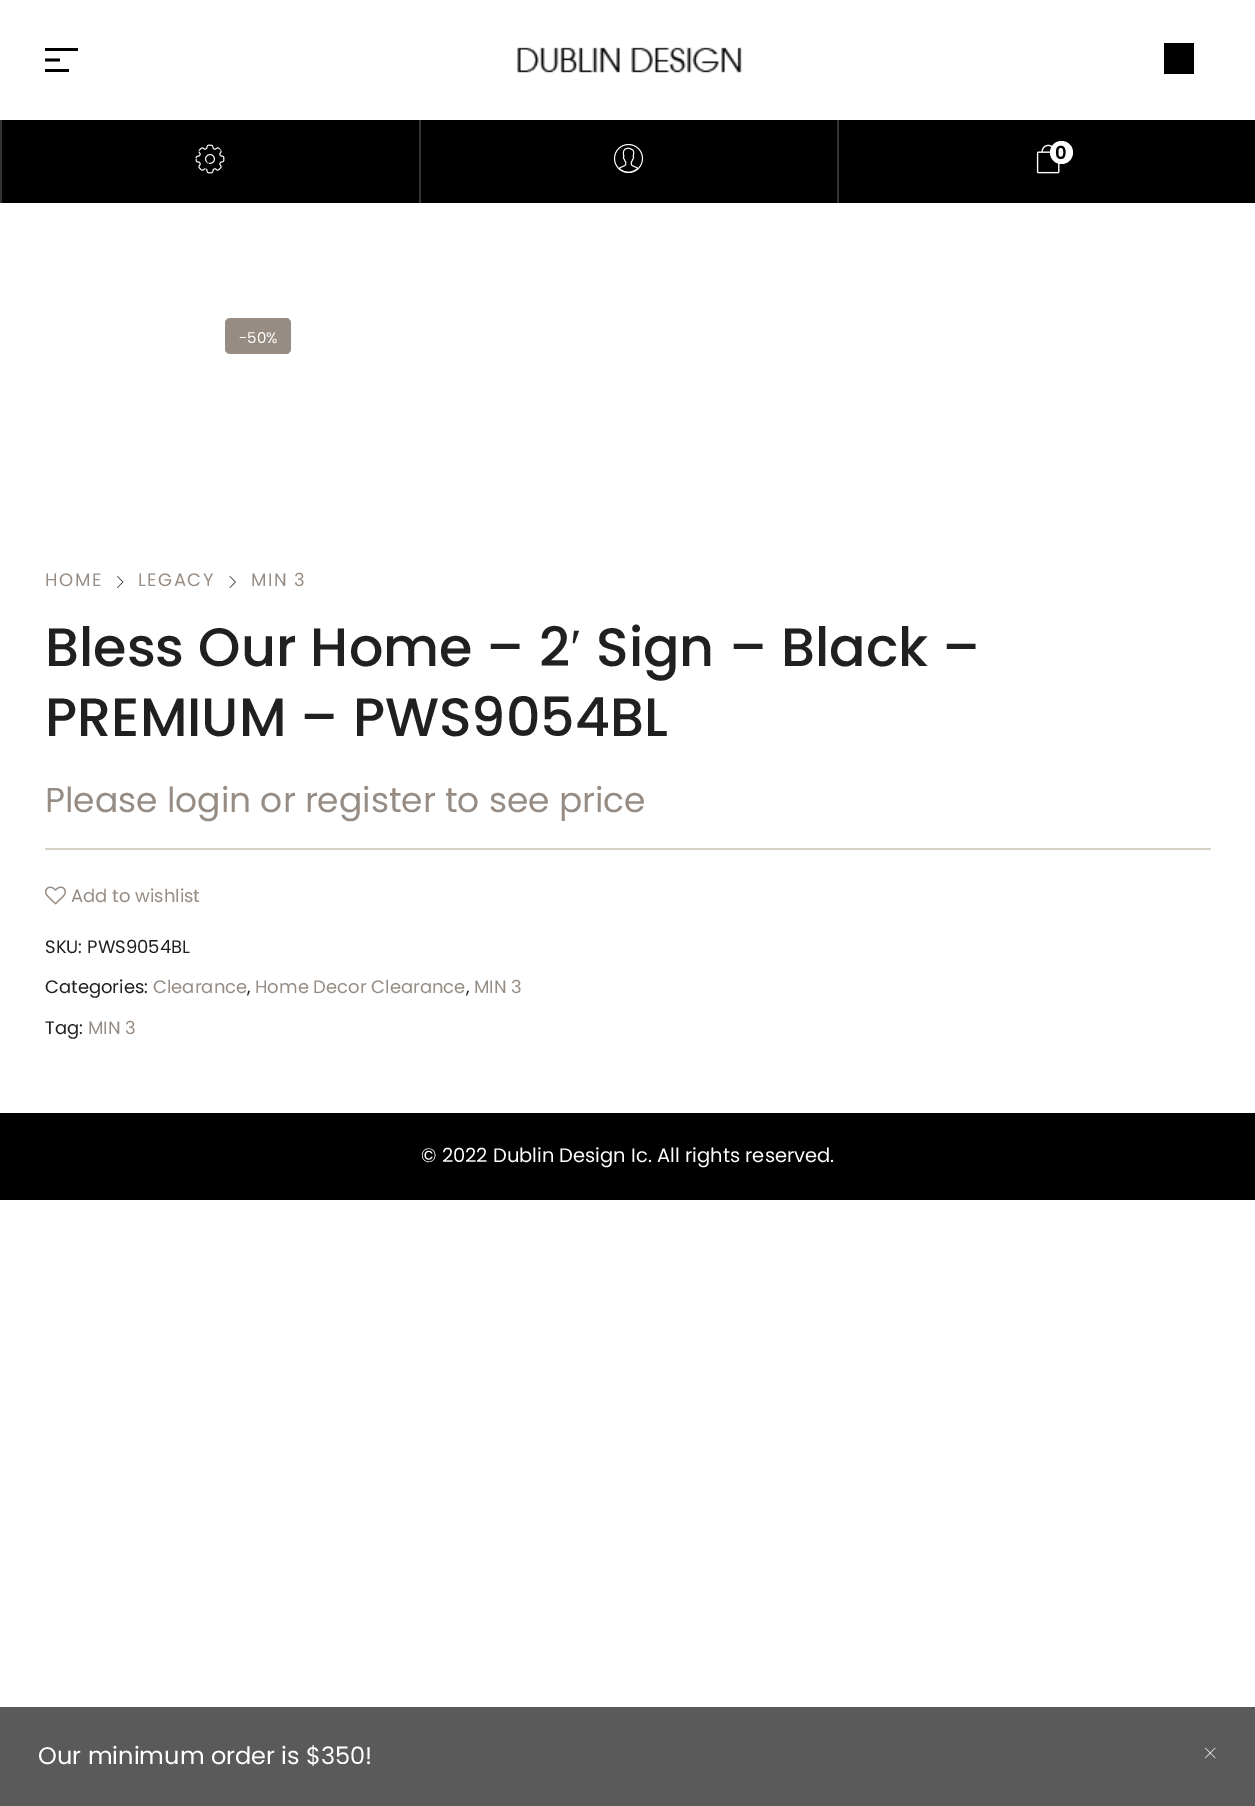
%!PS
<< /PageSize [1255 1806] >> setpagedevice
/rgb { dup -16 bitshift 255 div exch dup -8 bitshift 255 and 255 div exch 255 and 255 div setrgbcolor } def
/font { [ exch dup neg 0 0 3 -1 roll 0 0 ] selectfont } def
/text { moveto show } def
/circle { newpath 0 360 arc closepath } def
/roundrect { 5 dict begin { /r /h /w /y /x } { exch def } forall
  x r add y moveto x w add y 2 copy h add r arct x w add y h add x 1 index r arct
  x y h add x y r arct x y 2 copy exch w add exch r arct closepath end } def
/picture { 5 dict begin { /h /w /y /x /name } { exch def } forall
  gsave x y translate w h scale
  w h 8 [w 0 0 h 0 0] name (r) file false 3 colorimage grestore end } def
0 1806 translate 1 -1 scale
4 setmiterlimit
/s1 { /Poppins-SemiBold 18 font 16#000000 rgb } def
/s2 { /Poppins-Regular 15 font 16#FFFFFF rgb } def
/s3 { /Poppins-Medium 54 font 16#202020 rgb } def
/s4 { /LiberationSerif-Regular 54 font 16#202020 rgb } def
/s5 { /Poppins-Regular 34.5 font 16#968C83 rgb } def
/s6 { /Poppins-Regular 18 font 16#968C83 rgb } def
/s7 { /Poppins-Regular 18 font 16#202020 rgb } def
/s8 { /Poppins-Regular 19.5 font 16#FFFFFF rgb } def
/s9 { /Poppins-Regular 24 font 16#FFFFFF rgb } def
16#FFFFFF rgb
0 0 1255 1806 rectfill
16#000000 rgb
45 48 moveto 78 48 lineto 78 51 lineto 45 51 lineto closepath 45 58.5 moveto 60 58.5 lineto 60 61.5 lineto 45 61.5 lineto closepath 45 69 moveto 69 69 lineto 69 72 lineto 45 72 lineto closepath fill
(pic1.raw) 517 47 225 26 picture
1164 43 30 31 rectfill
2 120 1253 83 rectfill
16#333333 rgb
0 120 2 83 rectfill
(pic2.raw) 195 144 30 30 picture
419 120 2 83 rectfill
(pic3.raw) 613 144 31 30 picture
837 120 2 83 rectfill
(pic4.raw) 1036 144 24 30 picture
16#FFFFFF rgb
1061.5 152.5 11.5 circle fill
s1
(0) 1055 159 text
16#968C83 rgb
225 318 66 36 5 roundrect fill
s2
(-50%) 239 343 text
/Poppins-Regular 18 font
16#968C83 rgb
45 586 moveto 1.5 0 (HOME) ashow
(pic5.raw) 117 576 7 12 picture
138 586 moveto 1.5 0 (LEGACY) ashow
(pic6.raw) 229 576 7 12 picture
251 586 moveto 1.5 0 (MIN 3) ashow
s3
(Bless Our Home – 2) 45 666 text
s4
(′) 570 666 text
s3
(Sign – Black –) 596 666 text
(PREMIUM – PWS9054BL) 45 736 text
16#D6D2C4 rgb
45 848 1166 2 rectfill
s5
(Please login or register to see price) 45 812 text
(pic7.raw) 45 886 21 19 picture
s6
(Add to wishlist) 71 902 text
s7
(SKU: PWS9054BL) 45 953 text
(Categories:) 45 993 text
s6
(Clearance) 153 993 text
s7
(,) 247 993 text
s6
(Home Decor Clearance) 255 993 text
s7
(,) 466 993 text
s6
(MIN 3) 474 993 text
s7
(Tag:) 45 1034 text
s6
(MIN 3) 88 1034 text
16#000000 rgb
0 1113 1255 87 rectfill
s8
(© 2022 Dublin Design Ic. All rights reserved.) 421 1162 text
16#5A5A5A rgb
0 1707 1255 99 rectfill
s9
(Our minimum order is $350!) 38 1764 text
(pic8.raw) 1205 1747 11 12 picture
showpage
